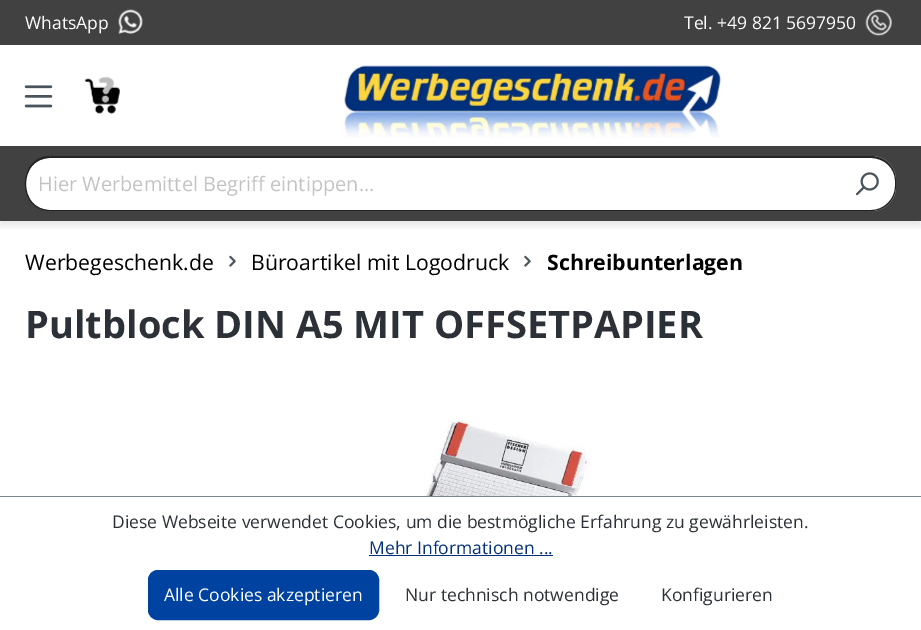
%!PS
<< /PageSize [921 630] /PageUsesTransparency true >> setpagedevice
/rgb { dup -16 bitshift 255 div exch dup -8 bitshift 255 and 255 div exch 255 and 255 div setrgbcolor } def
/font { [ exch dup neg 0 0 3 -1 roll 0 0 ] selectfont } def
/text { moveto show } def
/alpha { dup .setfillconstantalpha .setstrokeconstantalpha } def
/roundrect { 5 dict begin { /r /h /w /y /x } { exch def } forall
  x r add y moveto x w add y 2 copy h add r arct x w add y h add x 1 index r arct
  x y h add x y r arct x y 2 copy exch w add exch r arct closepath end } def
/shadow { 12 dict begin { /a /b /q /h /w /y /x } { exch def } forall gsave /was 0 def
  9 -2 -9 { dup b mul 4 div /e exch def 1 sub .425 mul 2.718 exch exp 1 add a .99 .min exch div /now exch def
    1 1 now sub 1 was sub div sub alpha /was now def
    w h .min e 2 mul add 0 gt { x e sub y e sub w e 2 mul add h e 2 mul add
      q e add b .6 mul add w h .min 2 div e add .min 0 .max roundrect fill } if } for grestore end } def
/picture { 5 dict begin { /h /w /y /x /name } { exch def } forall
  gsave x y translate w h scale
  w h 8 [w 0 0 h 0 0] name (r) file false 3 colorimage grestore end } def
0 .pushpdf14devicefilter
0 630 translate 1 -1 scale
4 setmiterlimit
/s1 { /OpenSans-Regular 17.5 font 16#FFFFFF rgb } def
/s2 { /OpenSans-Regular 20 font 16#C3C3C3 rgb } def
/s3 { /OpenSans-Regular 21.25 font 16#000000 rgb } def
/s4 { /OpenSans-Bold 21.25 font 16#000000 rgb } def
/s5 { /OpenSans-Bold 38 font 16#2B3136 rgb } def
/s6 { /OpenSans-Regular 17.5 font 16#2B3136 rgb } def
/s7 { /OpenSans-Regular 17.5 font 16#032F79 rgb } def
16#FFFFFF rgb
0 0 921 630 rectfill
gsave
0 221 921 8 rectclip
16#000000 rgb
0 5 921 221 0 4 0.1 shadow
grestore
16#414141 rgb
0 0 921 45 rectfill
s1
(WhatsApp) 25 29 text
(pic1.raw) 118 9 25 25 picture
(Tel. +49 821 5697950) 684 29 text
(pic2.raw) 865 9 27 27 picture
(pic3.raw) 24 85 29 23 picture
(pic4.raw) 84 76 36 38 picture
(pic5.raw) 344 65 377 73 picture
16#414141 rgb
0 146 921 75 rectfill
16#FFFFFF rgb
50 158 moveto 839 158 lineto 839 210 lineto 50 210 lineto 36.5 210 26 199.5 26 186 curveto 26 182 lineto 26 168.5 36.5 158 50 158 curveto closepath fill
16#242424 rgb
50 156 moveto 839 156 lineto 839 211 lineto 50 211 lineto 35 211 26 200 25 186 curveto 24 171 33 156 50 156 curveto closepath 50 158 moveto 839 158 lineto 839 210 lineto 50 210 lineto 18 210 18 158 50 158 curveto closepath eofill
s2
(Hier Werbemittel Begriff eintippen...) 38 191 text
16#FFFFFF rgb
838 156 moveto 871 156 lineto 885 156 896 167 896 181 curveto 896 186 lineto 896 200 885 211 871 211 curveto 838 211 lineto closepath fill
16#242424 rgb
838 156 moveto 871 156 lineto 885 156 896 167 896 181 curveto 896 186 lineto 896 200 885 211 871 211 curveto 838 211 lineto closepath 838 158 moveto 871 158 lineto 884 158 895 168 895 181 curveto 895 186 lineto 895 199 884 210 871 210 curveto 838 210 lineto closepath eofill
(pic6.raw) 856 172 23 24 picture
s3
(Werbegeschenk.de) 25 270 text
(pic7.raw) 229 255 7 12 picture
(Büroartikel mit Logodruck) 251 270 text
(pic7.raw) 524 255 7 12 picture
s4
(Schreibunterlagen) 547 270 text
s5
(Pultblock DIN A5 MIT OFFSETPAPIER) 25 338 text
(pic8.raw) 325 419 265 77 picture
16#798490 rgb
0 496 921 1 rectfill
s6
(Diese Webseite verwendet Cookies, um die bestmögliche Erfahrung zu gewährleisten.) 112 528 text
s7
(Mehr Informationen ...) 369 554 text
369 555 184 1 rectfill
16#0042A0 rgb
148.5 570.5 230 49 9.5 roundrect gsave fill grestore
stroke
s1
(Alle Cookies akzeptieren) 164 601 text
s6
(Nur technisch notwendige) 405 601 text
(Konfigurieren) 661 601 text
.poppdf14devicefilter showpage
